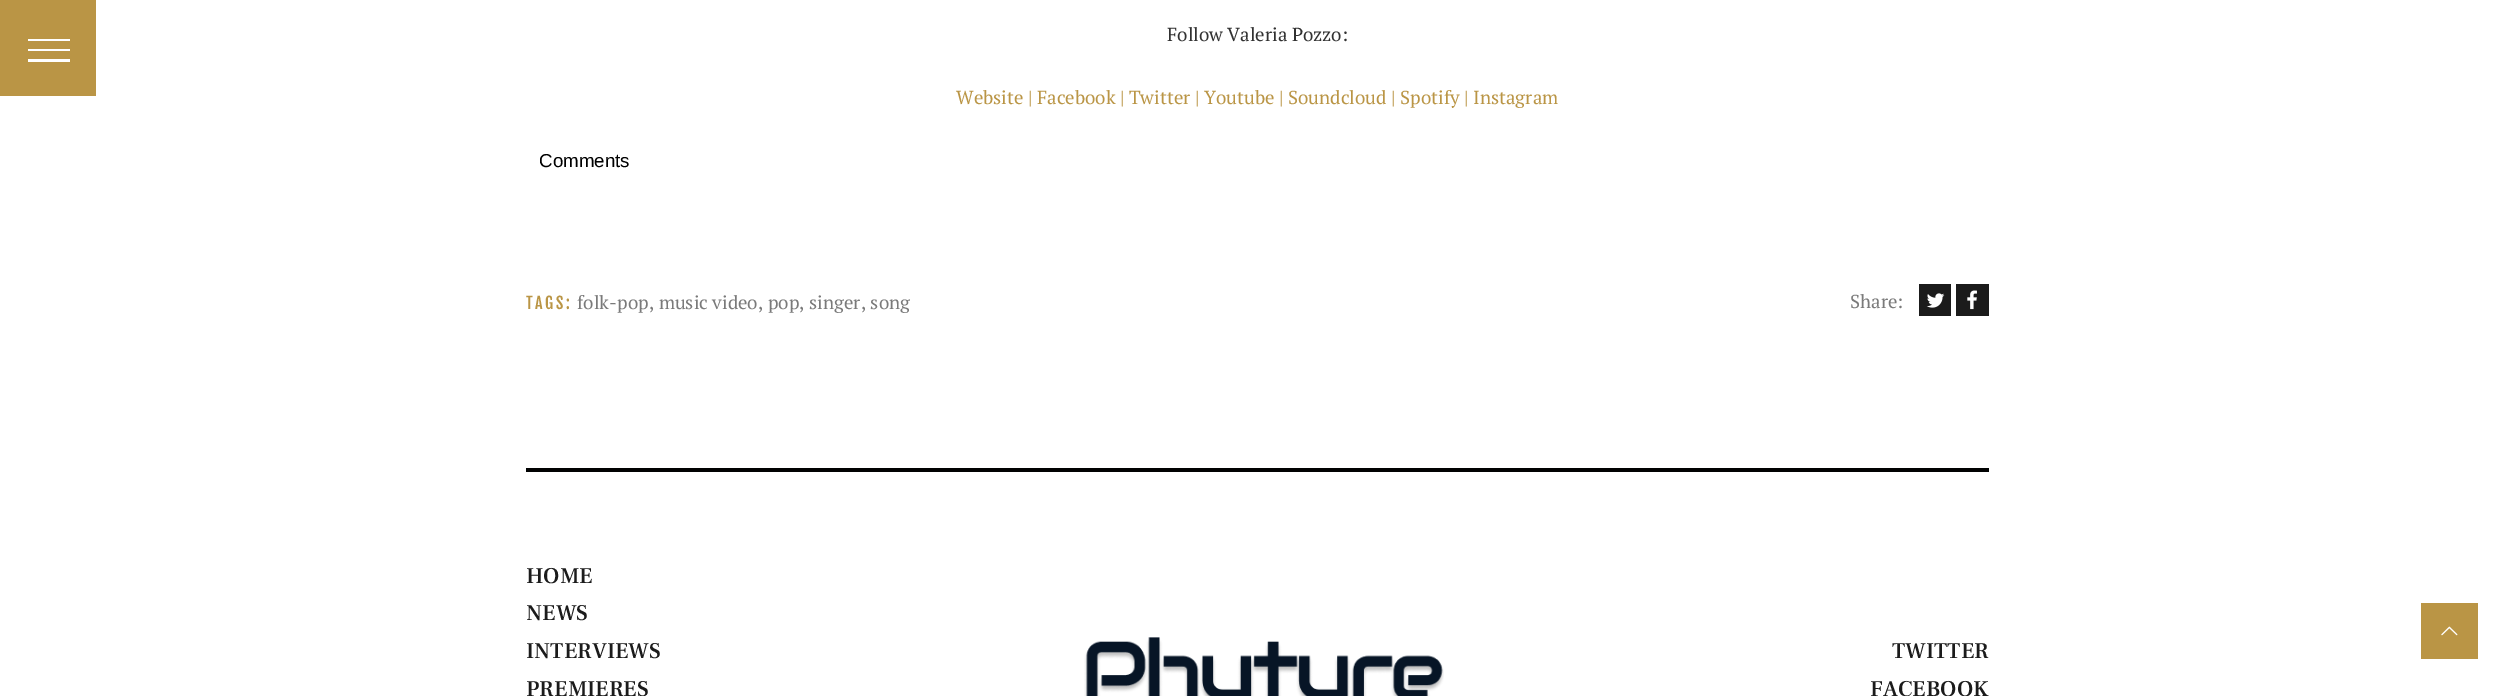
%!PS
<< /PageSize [2514 696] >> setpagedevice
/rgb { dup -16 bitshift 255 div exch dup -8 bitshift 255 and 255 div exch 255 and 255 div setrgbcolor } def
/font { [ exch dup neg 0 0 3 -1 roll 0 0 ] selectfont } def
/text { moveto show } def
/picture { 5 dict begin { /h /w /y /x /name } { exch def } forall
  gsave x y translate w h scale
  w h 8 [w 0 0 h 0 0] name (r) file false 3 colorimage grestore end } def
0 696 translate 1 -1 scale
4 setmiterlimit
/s1 { /PTSerif-Regular 18.75 font 16#313131 rgb } def
/s2 { /PTSerif-Regular 18.75 font 16#BA9545 rgb } def
/s3 { /LiberationSans-Regular 18.75 font 16#000000 rgb } def
/s4 { /PTSerif-Regular 18.75 font 16#7A7A7A rgb } def
/s5 { /FrankRuhlLibre-Medium 22.5 font 16#1B1B1B rgb } def
16#FFFFFF rgb
0 0 2514 696 rectfill
16#BA9545 rgb
0 0 96 96 rectfill
16#FFFFFF rgb
70 39 moveto 70 41 lineto 28 41 lineto 28 39 lineto closepath 28 51 moveto 70 51 lineto 70 49 lineto 28 49 lineto closepath 28 62 moveto 70 62 lineto 70 59 lineto 28 59 lineto closepath fill
s1
(Follow Valeria Pozzo:) 1167 41 text
s2
(Website | Facebook | Twitter | Youtube | Soundcloud | Spotify | Instagram) 956 104 text
s3
(Comments) 539 167 text
/FjallaOne-Regular 16 font
16#BA9545 rgb
526 309 moveto 2.5 0 (TAGS:) ashow
s4
(folk-pop, music video, pop, singer, song) 577 309 text
(Share:) 1850 308 text
16#1B1B1B rgb
1919 284 32 32 rectfill
(pic1.raw) 1926 293 19 15 picture
1956 284 33 32 rectfill
(pic2.raw) 1967 290 10 20 picture
16#010202 rgb
526 468 1463 4 rectfill
s5
(HOME) 526 583 text
(NEWS) 526 620 text
(INTERVIEWS) 526 658 text
(PREMIERES) 526 696 text
(pic3.raw) 1084 637 360 59 picture
(TWITTER) 1892 658 text
(FACEBOOK) 1870 696 text
16#BA9545 rgb
2421 603 57 56 rectfill
(pic4.raw) 2441 626 17 10 picture
showpage
